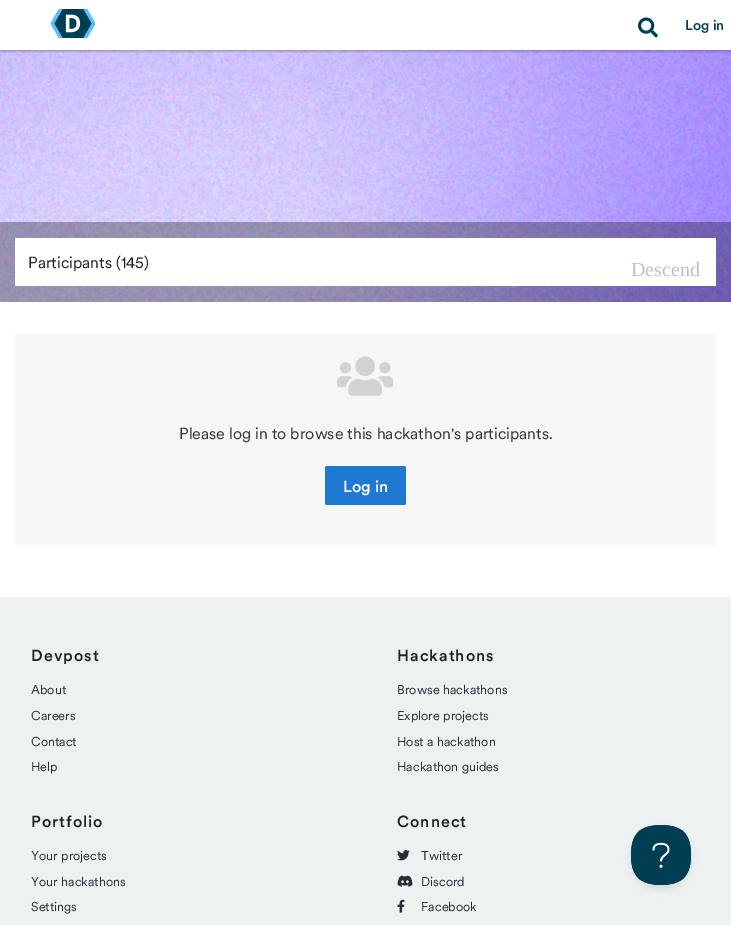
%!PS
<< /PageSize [731 925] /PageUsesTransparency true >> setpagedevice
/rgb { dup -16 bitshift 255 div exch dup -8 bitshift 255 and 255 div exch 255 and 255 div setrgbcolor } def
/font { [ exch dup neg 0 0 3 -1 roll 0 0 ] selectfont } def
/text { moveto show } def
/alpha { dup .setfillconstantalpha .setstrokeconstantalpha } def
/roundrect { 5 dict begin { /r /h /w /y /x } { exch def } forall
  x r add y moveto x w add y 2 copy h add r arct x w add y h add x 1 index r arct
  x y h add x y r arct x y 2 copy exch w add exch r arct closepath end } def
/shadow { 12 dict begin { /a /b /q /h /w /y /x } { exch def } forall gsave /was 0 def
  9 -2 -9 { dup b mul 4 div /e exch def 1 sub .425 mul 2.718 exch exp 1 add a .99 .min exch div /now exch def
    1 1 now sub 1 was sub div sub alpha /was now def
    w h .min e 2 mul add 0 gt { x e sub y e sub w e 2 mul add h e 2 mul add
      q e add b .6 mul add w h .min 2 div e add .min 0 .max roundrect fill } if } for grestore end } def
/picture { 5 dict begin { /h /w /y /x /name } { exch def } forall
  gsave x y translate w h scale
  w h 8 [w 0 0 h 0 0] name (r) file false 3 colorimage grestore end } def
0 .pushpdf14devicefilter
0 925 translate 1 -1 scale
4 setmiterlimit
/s1 { /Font-Medium 14 font 16#003E54 rgb } def
/s2 { /Font-Regular 16 font 16#192325 rgb } def
/s3 { /LiberationSerif-Regular 20 font 16#B7C3C7 rgb } def
/s4 { /Font-Regular 16 font 16#333333 rgb } def
/s5 { /Font-Medium 16 font 16#FFFFFF rgb } def
/s6 { /Font-Regular 12.75 font 16#233136 rgb } def
16#FFFFFF rgb
0 0 731 925 rectfill
(pic3.raw) 0 50 731 252 picture
gsave
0 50 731 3 rectclip
16#000000 rgb
0 1 731 50 0 1.5 0.3 shadow
grestore
(pic1.raw) 50 9 45 29 picture
(pic2.raw) 638 17 20 21 picture
s1
(Log in) 685 30 text
(pic4.raw) 288 70 156 152 picture
0.3 alpha
16#000000 rgb
0 222 731 80 rectfill
1 alpha
16#FFFFFF rgb
15 238 701 48 rectfill
s2
(Participants \(145\)) 28 268 text
s3
(Descend) 631 276 text
16#F5F7F7 rgb
15 334 701 211 rectfill
(pic5.raw) 337 356 57 40 picture
s4
(Please log in to browse this hackathon's participants.) 179 439 text
16#1F78D1 rgb
325 466 81 39 2 roundrect fill
s5
(Log in) 343 492 text
16#EDF1F2 rgb
0 597 731 328 rectfill
16#192325 rgb
31 661 moveto 1 0 (Devpost) ashow
s6
(About) 31 694 text
(Careers) 31 720 text
(Contact) 31 746 text
(Help) 31 771 text
/Font-Medium 16 font
16#192325 rgb
397 661 moveto 1 0 (Hackathons) ashow
s6
(Browse hackathons) 397 694 text
(Explore projects) 397 720 text
(Host a hackathon) 397 746 text
(Hackathon guides) 397 771 text
/Font-Medium 16 font
16#192325 rgb
31 827 moveto 1 0 (Portfolio) ashow
s6
(Your projects) 31 860 text
(Your hackathons) 31 886 text
(Settings) 31 911 text
/Font-Medium 16 font
16#192325 rgb
397 827 moveto 1 0 (Connect) ashow
(pic6.raw) 397 850 13 11 picture
s6
(Twitter) 421 860 text
(pic7.raw) 397 875 16 12 picture
(Discord) 421 886 text
(pic8.raw) 397 899 8 14 picture
(Facebook) 421 911 text
16#000000 rgb
631 829 60 60 30 3.5 0.1 shadow
(pic9.raw) 631 825 60 60 picture
.poppdf14devicefilter showpage
